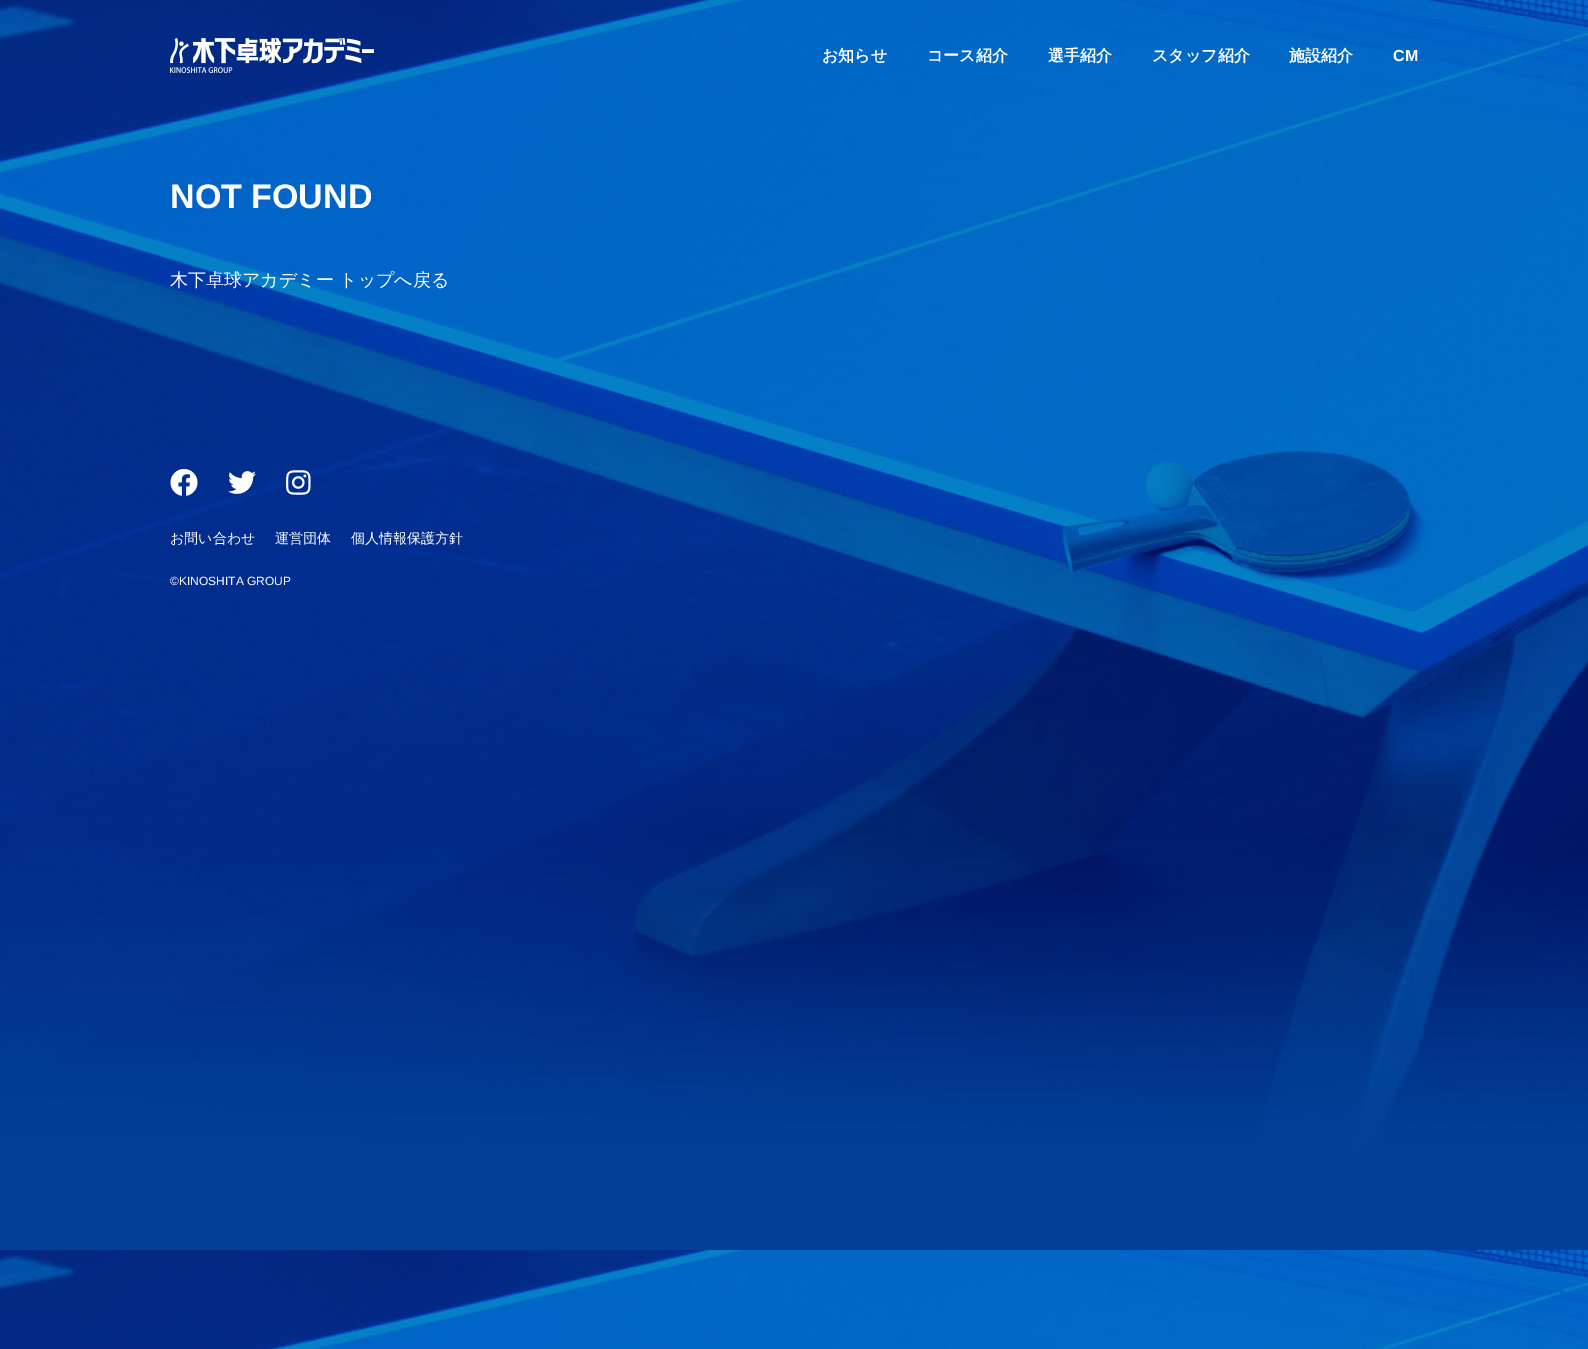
%!PS
<< /PageSize [1588 1349] >> setpagedevice
/rgb { dup -16 bitshift 255 div exch dup -8 bitshift 255 and 255 div exch 255 and 255 div setrgbcolor } def
/font { [ exch dup neg 0 0 3 -1 roll 0 0 ] selectfont } def
/text { moveto show } def
/picture { 5 dict begin { /h /w /y /x /name } { exch def } forall
  gsave x y translate w h scale
  w h 8 [w 0 0 h 0 0] name (r) file false 3 colorimage grestore end } def
0 1349 translate 1 -1 scale
4 setmiterlimit
/s1 { /WenQuanYiZenHei-Bold 16 font 16#FFFFFF rgb } def
/s2 { /LiberationSans-Bold 16 font 16#FFFFFF rgb } def
/s3 { /LiberationSans-Bold 34 font 16#FFFFFF rgb } def
/s4 { /WenQuanYiZenHei-Medium 18 font 16#FFFFFF rgb } def
/s5 { /WenQuanYiZenHei-Medium 14 font 16#FFFFFF rgb } def
/s6 { /LiberationSans-Regular 12 font 16#FFFFFF rgb } def
16#FFFFFF rgb
0 0 1588 1349 rectfill
(pic1.raw) 0 0 1588 1349 picture
(pic2.raw) 170 38 204 35 picture
s1
(お知らせ) 822 61 text
(コース紹介) 927 61 text
(選手紹介) 1048 61 text
(スタッフ紹介) 1152 61 text
(施設紹介) 1289 61 text
s2
(CM) 1393 61 text
s3
(NOT FOUND) 170 208 text
s4
(木下卓球アカデミー トップへ戻る) 170 286 text
(pic3.raw) 170 469 28 27 picture
(pic4.raw) 228 471 28 23 picture
(pic5.raw) 286 470 25 25 picture
s5
(お問い合わせ) 170 543 text
(運営団体) 275 543 text
(個人情報保護方針) 351 543 text
s6
(©KINOSHITA GROUP) 170 585 text
showpage
